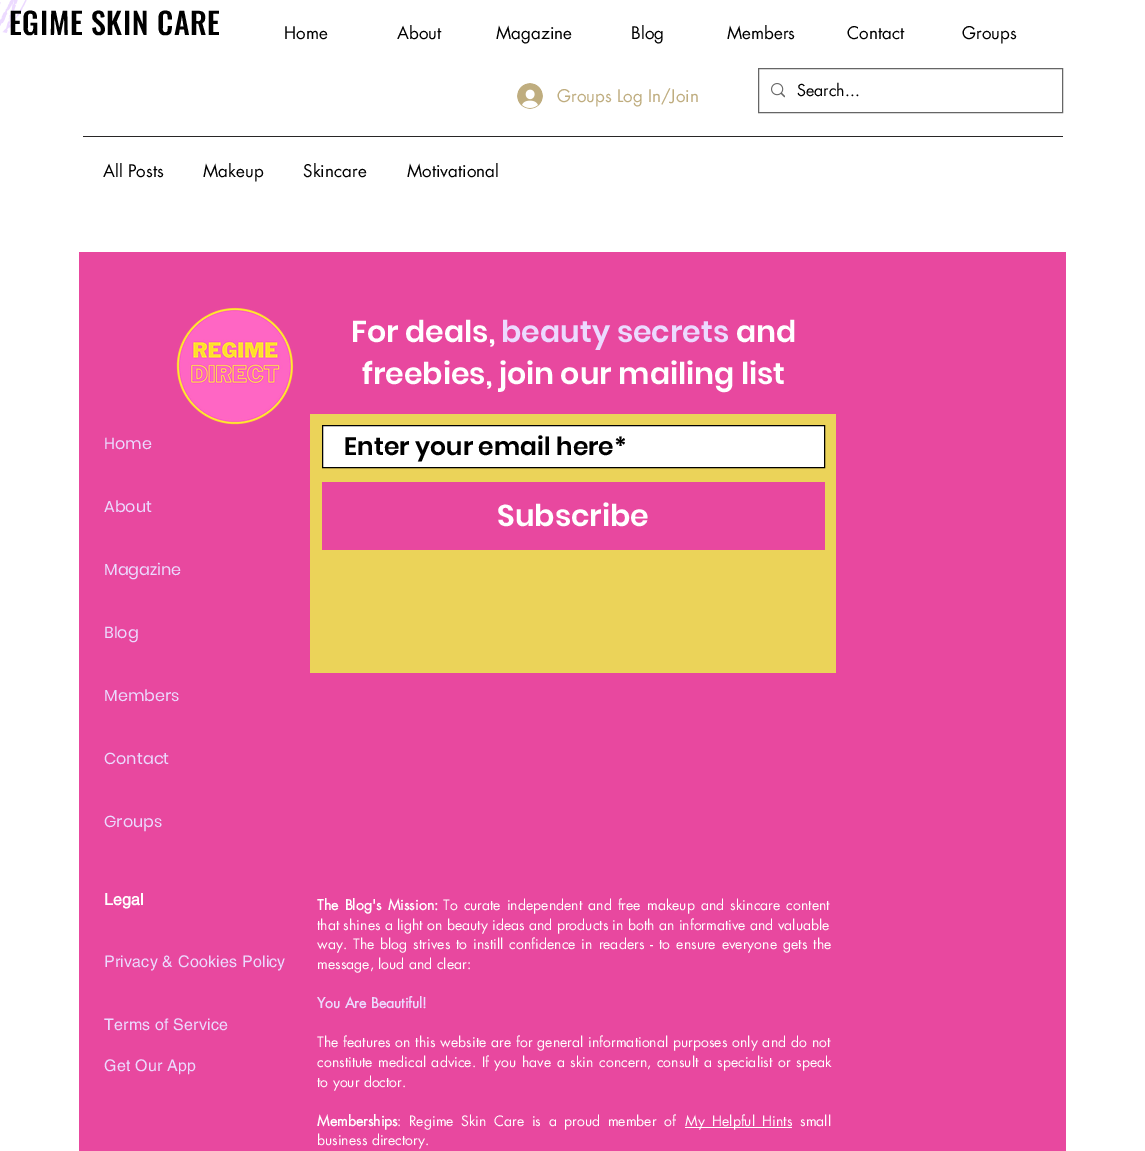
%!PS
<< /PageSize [1145 1151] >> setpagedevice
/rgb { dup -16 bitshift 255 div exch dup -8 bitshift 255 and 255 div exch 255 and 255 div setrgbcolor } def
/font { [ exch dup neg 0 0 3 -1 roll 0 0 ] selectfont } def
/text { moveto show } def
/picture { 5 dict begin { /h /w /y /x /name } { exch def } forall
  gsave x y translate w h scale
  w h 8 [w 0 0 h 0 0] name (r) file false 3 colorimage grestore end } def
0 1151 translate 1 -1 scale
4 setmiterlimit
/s1 { /futura-Regular 17 font 16#000000 rgb } def
/s2 { /futura-Regular 17 font 16#BFAD7F rgb } def
/s3 { /futura-Regular 16 font 16#000000 rgb } def
/s4 { /Poppins-SemiBold 30 font 16#FFFFFF rgb } def
/s5 { /Poppins-SemiBold 30 font 16#ECDAFF rgb } def
/s6 { /Poppins-Regular 16 font 16#ECDAFF rgb } def
/s7 { /Poppins-SemiBold 25 font 16#000000 rgb } def
/s8 { /futura-Regular 14 font 16#FFFFFF rgb } def
/s9 { /futura-Bold 14 font 16#ECDAFF rgb } def
/s10 { /futura-Bold 14 font 16#FFFFFF rgb } def
16#FFFFFF rgb
0 0 1145 1151 rectfill
(pic1.raw) 0 0 27 33 picture
/Oswald-Medium 30 font
16#000000 rgb
9 35 moveto 0.6 0 (EGIME SKIN CARE) ashow
s1
(Home) 284 39 text
(About) 397 39 text
(Magazine) 496 39 text
(Blog) 631 39 text
(Members) 727 39 text
(Contact) 847 39 text
(Groups) 962 39 text
(pic2.raw) 517 83 26 26 picture
s2
(Groups Log In/Join) 557 102 text
16#666666 rgb
758.5 68.5 304 44 rectstroke
(pic3.raw) 771 83 14 15 picture
s3
(Search...) 797 96 text
16#282626 rgb
83 136 980 1 rectfill
s1
(All Posts) 103 177 text
(Makeup) 203 177 text
(Skincare) 303 177 text
(Motivational) 407 177 text
16#E8489F rgb
79 252 987 899 rectfill
(pic4.raw) 176 307 118 118 picture
s4
(For deals,) 351 342 text
s5
(beauty secrets) 501 342 text
s4
(and) 736 342 text
(freebies, join our mailing list) 362 384 text
s6
(Home) 104 449 text
(About) 104 512 text
(Magazine) 104 575 text
(Blog) 104 638 text
(Members) 104 701 text
(Contact) 104 764 text
(Groups) 104 827 text
/helvetica-Bold 16 font
16#FFFFFF rgb
104 905 moveto 0.2 0 (Legal) ashow
/helvetica-Regular 16 font
16#ECDAFF rgb
104 967 moveto 0.2 0 (Privacy & Cookies Policy) ashow
104 1030 moveto 0.2 0 (Terms of Service) ashow
104 1071 moveto 0.2 0 (Get Our App) ashow
16#EBD359 rgb
310 414 526 259 rectfill
16#FFFFFF rgb
322.5 425.5 moveto 824.5 425.5 lineto 824.5 467.5 lineto 322.5 467.5 lineto closepath gsave fill grestore
16#000000 rgb
stroke
s7
(Enter your email here*) 344 455 text
16#E8489F rgb
322 482 503 68 rectfill
s4
(Subscribe) 497 526 text
/futura-Bold 14 font
317 910 moveto 2 0 32 (The Blog's Mission:) widthshow
/futura-Regular 14 font
443 910 moveto 1.75 0 32 (To curate independent and free makeup and skincare content) widthshow
(that shines a light on beauty ideas and products in both an informative and valuable) 317 930 text
317 949 moveto 1.7 0 32 (way. The blog strives to instill confidence in readers - to ensure everyone gets the) widthshow
(message, loud and clear:) 317 969 text
s9
(You Are Beautiful!) 317 1008 text
/futura-Regular 14 font
16#FFFFFF rgb
317 1047 moveto 0.6 0 32 (The features on this website are for general informational purposes only and do not) widthshow
317 1067 moveto 1.25 0 32 (constitute medical advice. If you have a skin concern, consult a specialist or speak) widthshow
(to your doctor.) 317 1087 text
s10
(Memberships) 317 1126 text
/futura-Regular 14 font
397 1126 moveto 3.25 0 32 (: Regime Skin Care is a proud member of) widthshow
685 1127 107 1 rectfill
685 1126 moveto 3.25 0 32 (My Helpful Hints) widthshow
(small) 800 1126 text
(business directory.) 317 1145 text
showpage
